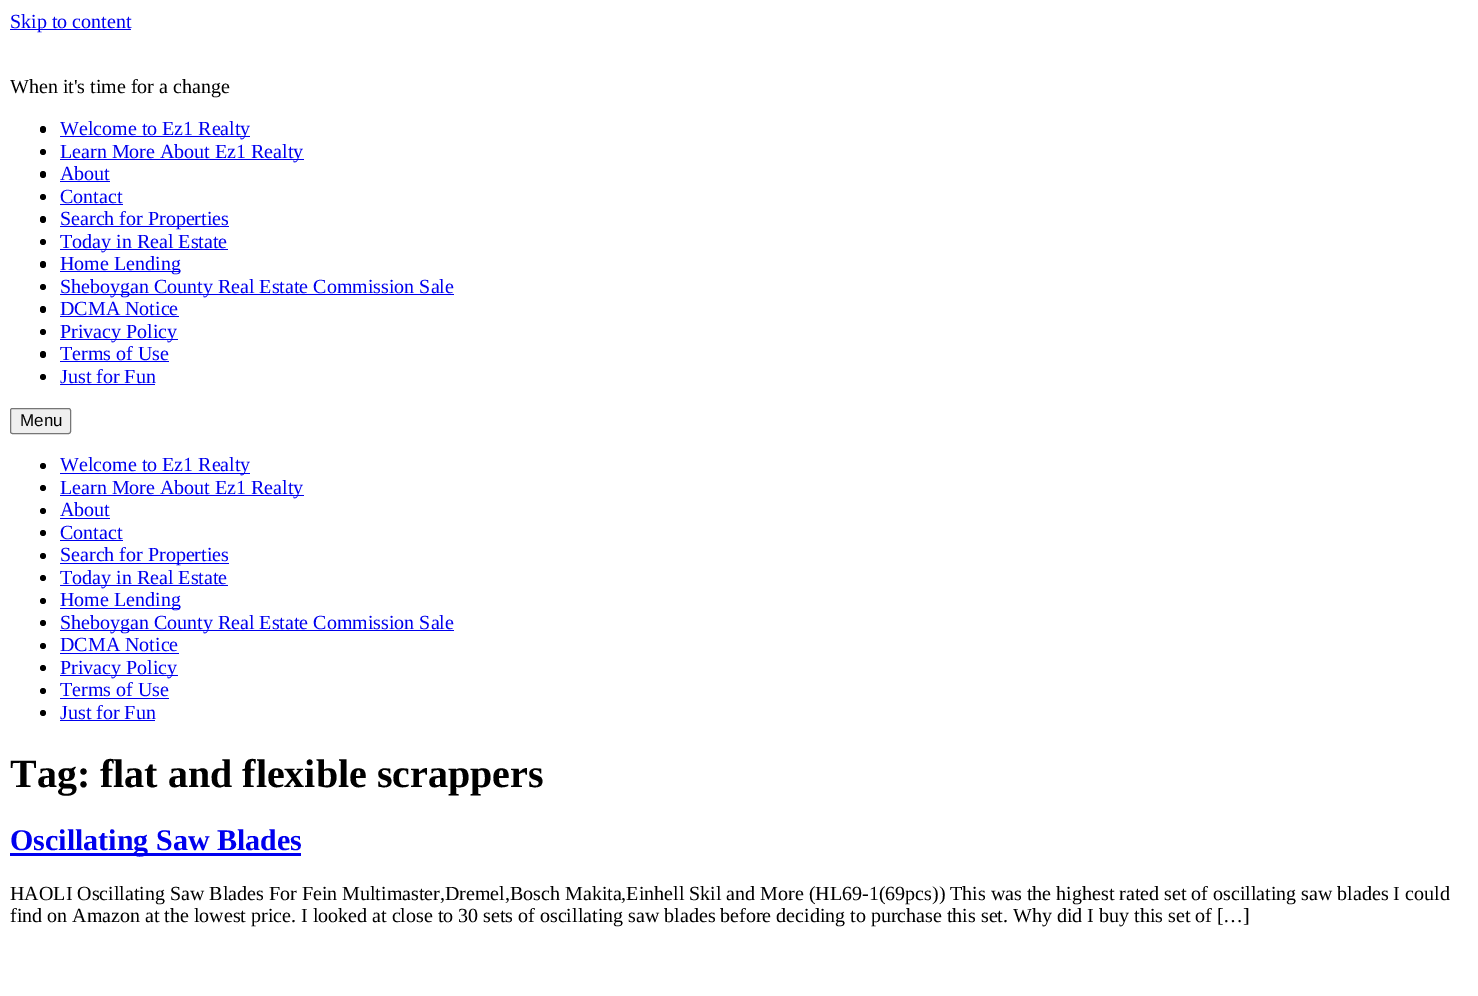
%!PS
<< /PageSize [1478 996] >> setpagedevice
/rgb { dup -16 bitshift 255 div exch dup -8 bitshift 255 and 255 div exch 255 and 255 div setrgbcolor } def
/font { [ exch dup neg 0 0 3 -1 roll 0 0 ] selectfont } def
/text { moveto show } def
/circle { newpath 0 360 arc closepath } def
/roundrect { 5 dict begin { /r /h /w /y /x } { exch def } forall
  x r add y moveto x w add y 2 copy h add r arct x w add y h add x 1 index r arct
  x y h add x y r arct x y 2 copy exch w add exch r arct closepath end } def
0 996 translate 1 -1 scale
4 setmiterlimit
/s1 { /LiberationSerif-Regular 20 font 16#0000EE rgb } def
/s2 { /LiberationSerif-Regular 20 font 16#000000 rgb } def
/s3 { /LiberationSans-Regular 17 font 16#000000 rgb } def
/s4 { /LiberationSerif-Bold 40 font 16#000000 rgb } def
/s5 { /LiberationSerif-Bold 30 font 16#0000EE rgb } def
16#FFFFFF rgb
0 0 1478 996 rectfill
16#0000EE rgb
10 29 121 1 rectfill
s1
(Skip to content) 10 28 text
s2
(When it's time for a change) 10 93 text
40 126 6 7 3 roundrect fill
16#0000EE rgb
60 136 190 1 rectfill
(Welcome to Ez1 Realty) 60 135 text
16#000000 rgb
43 152 3 circle fill
16#0000EE rgb
60 159 244 1 rectfill
(Learn More About Ez1 Realty) 60 158 text
16#000000 rgb
40 171 6 7 3 roundrect fill
s1
(About) 60 180 text
60 181 50 1 rectfill
16#000000 rgb
43 197 3 circle fill
s1
(Contact) 60 203 text
60 204 63 1 rectfill
16#000000 rgb
40 216 6 7 3 roundrect fill
16#0000EE rgb
60 226 169 1 rectfill
(Search for Properties) 60 225 text
16#000000 rgb
43 242 3 circle fill
16#0000EE rgb
60 249 168 1 rectfill
(Today in Real Estate) 60 248 text
16#000000 rgb
40 261 6 7 3 roundrect fill
16#0000EE rgb
60 271 120 1 rectfill
(Home Lending) 60 270 text
16#000000 rgb
43 287 3 circle fill
16#0000EE rgb
60 294 394 1 rectfill
(Sheboygan County Real Estate Commission Sale) 60 293 text
16#000000 rgb
40 306 6 7 3 roundrect fill
s1
(DCMA Notice) 60 315 text
60 316 119 1 rectfill
16#000000 rgb
43 332 3 circle fill
16#0000EE rgb
60 339 118 1 rectfill
(Privacy Policy) 60 338 text
16#000000 rgb
40 351 6 7 3 roundrect fill
s1
(Terms of Use) 60 360 text
60 361 109 1 rectfill
16#000000 rgb
43 377 3 circle fill
s1
(Just for Fun) 60 383 text
60 384 95 1 rectfill
16#EFEFEF rgb
10.5 408.5 60 25 2 roundrect gsave fill grestore
16#767676 rgb
stroke
s3
(Menu) 20 426 text
43 466 3 circle fill
16#0000EE rgb
60 473 190 1 rectfill
s1
(Welcome to Ez1 Realty) 60 471 text
16#000000 rgb
43 488 3 circle fill
16#0000EE rgb
60 495 244 1 rectfill
(Learn More About Ez1 Realty) 60 494 text
16#000000 rgb
43 511 3 circle fill
s1
(About) 60 516 text
60 518 50 1 rectfill
16#000000 rgb
43 533 3 circle fill
s1
(Contact) 60 539 text
60 540 63 1 rectfill
16#000000 rgb
43 556 3 circle fill
16#0000EE rgb
60 563 169 1 rectfill
(Search for Properties) 60 561 text
16#000000 rgb
43 578 3 circle fill
16#0000EE rgb
60 585 168 1 rectfill
(Today in Real Estate) 60 584 text
16#000000 rgb
43 601 3 circle fill
16#0000EE rgb
60 608 120 1 rectfill
(Home Lending) 60 606 text
16#000000 rgb
43 623 3 circle fill
16#0000EE rgb
60 630 394 1 rectfill
(Sheboygan County Real Estate Commission Sale) 60 629 text
16#000000 rgb
43 646 3 circle fill
s1
(DCMA Notice) 60 651 text
60 653 119 1 rectfill
16#000000 rgb
43 668 3 circle fill
16#0000EE rgb
60 675 118 1 rectfill
(Privacy Policy) 60 674 text
16#000000 rgb
43 691 3 circle fill
s1
(Terms of Use) 60 696 text
60 698 109 1 rectfill
16#000000 rgb
43 713 3 circle fill
s1
(Just for Fun) 60 719 text
60 720 95 1 rectfill
s4
(Tag: flat and flexible scrappers) 10 787 text
16#0000EE rgb
10 853 291 3 rectfill
s5
(Oscillating Saw Blades) 10 850 text
s2
(HAOLI Oscillating Saw Blades For Fein Multimaster,Dremel,Bosch Makita,Einhell Skil and More \(HL69-1\(69pcs\)\) This was the highest rated set of oscillating saw blades I could) 10 900 text
(find on Amazon at the lowest price. I looked at close to 30 sets of oscillating saw blades before deciding to purchase this set. Why did I buy this set of […]) 10 922 text
showpage
